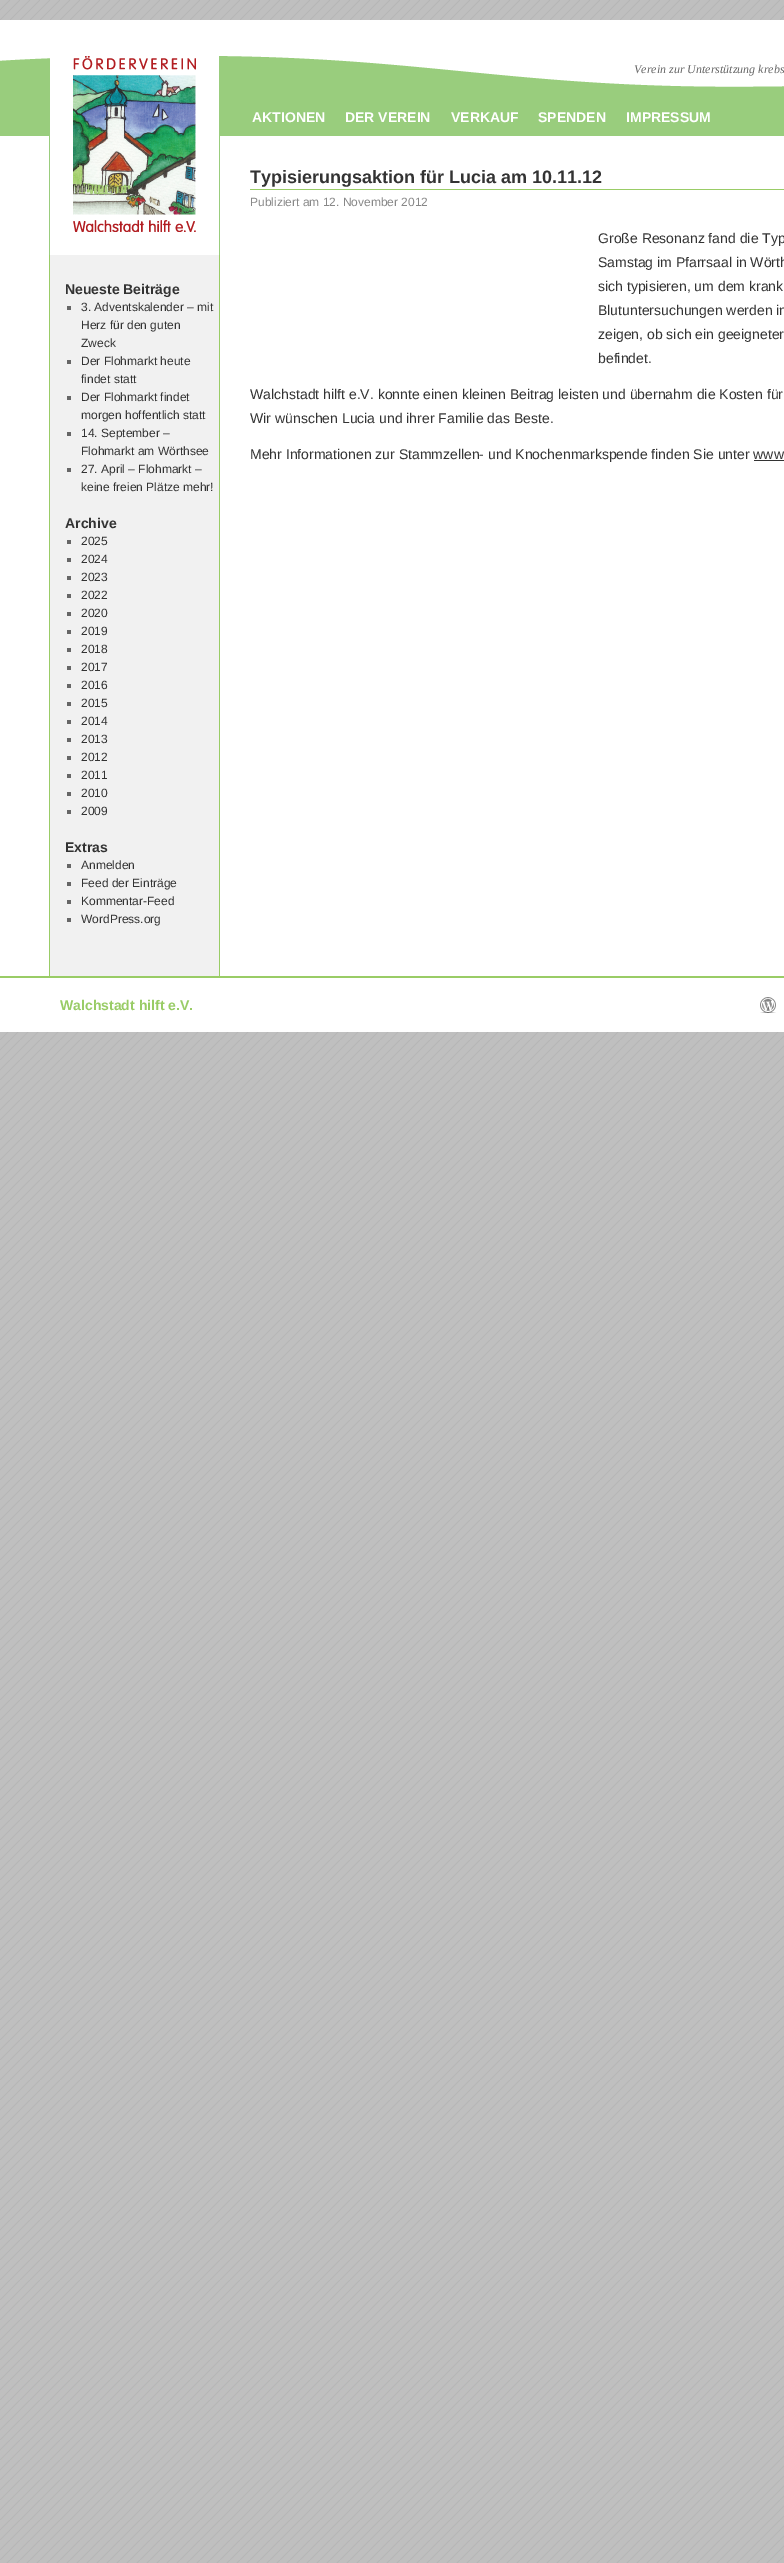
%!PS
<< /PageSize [784 2563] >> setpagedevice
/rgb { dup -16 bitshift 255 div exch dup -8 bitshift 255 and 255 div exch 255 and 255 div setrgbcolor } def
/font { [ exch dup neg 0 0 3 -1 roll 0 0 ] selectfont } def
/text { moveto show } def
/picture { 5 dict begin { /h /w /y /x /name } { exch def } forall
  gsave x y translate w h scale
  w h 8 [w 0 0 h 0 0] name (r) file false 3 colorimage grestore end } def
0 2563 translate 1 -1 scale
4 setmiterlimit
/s1 { /LiberationSerif-Italic 12 font 16#666666 rgb } def
/s2 { /LiberationSans-Bold 14 font 16#FFFFFF rgb } def
/s3 { /LiberationSans-Bold 14 font 16#333333 rgb } def
/s4 { /LiberationSans-Regular 12 font 16#333333 rgb } def
/s5 { /LiberationSans-Bold 18 font 16#333333 rgb } def
/s6 { /LiberationSans-Regular 12 font 16#888888 rgb } def
/s7 { /LiberationSans-Regular 14 font 16#333333 rgb } def
/s8 { /LiberationSans-Bold 14 font 16#99CC66 rgb } def
16#FFFFFF rgb
0 0 784 2563 rectfill
(pic1.raw) 0 0 784 2563 picture
0 20 784 1012 rectfill
(pic2.raw) 0 56 784 199 picture
s1
(Verein zur Unterstützung krebs) 634 73 text
s2
(AKTIONEN) 252 122 text
(DER VEREIN) 345 122 text
(VERKAUF) 451 122 text
(SPENDEN) 538 122 text
(IMPRESSUM) 626 122 text
16#F1F1F1 rgb
50 255 169 721 rectfill
16#99CC66 rgb
219 255 1 721 rectfill
49 255 1 721 rectfill
s3
(Neueste Beiträge) 65 294 text
16#666666 rgb
67 306 4 4 rectfill
s4
(3. Adventskalender – mit) 81 311 text
(Herz für den guten) 81 329 text
(Zweck) 81 347 text
16#666666 rgb
67 360 4 4 rectfill
s4
(Der Flohmarkt heute) 81 365 text
(findet statt) 81 383 text
16#666666 rgb
67 396 4 4 rectfill
s4
(Der Flohmarkt findet) 81 401 text
(morgen hoffentlich statt) 81 419 text
16#666666 rgb
67 432 4 4 rectfill
s4
(14. September –) 81 437 text
(Flohmarkt am Wörthsee) 81 455 text
16#666666 rgb
67 468 4 4 rectfill
s4
(27. April – Flohmarkt –) 81 473 text
(keine freien Plätze mehr!) 81 491 text
s3
(Archive) 65 528 text
16#666666 rgb
67 540 4 4 rectfill
s4
(2025) 81 545 text
16#666666 rgb
67 558 4 4 rectfill
s4
(2024) 81 563 text
16#666666 rgb
67 576 4 4 rectfill
s4
(2023) 81 581 text
16#666666 rgb
67 594 4 4 rectfill
s4
(2022) 81 599 text
16#666666 rgb
67 612 4 4 rectfill
s4
(2020) 81 617 text
16#666666 rgb
67 630 4 4 rectfill
s4
(2019) 81 635 text
16#666666 rgb
67 648 4 4 rectfill
s4
(2018) 81 653 text
16#666666 rgb
67 666 4 4 rectfill
s4
(2017) 81 671 text
16#666666 rgb
67 684 4 4 rectfill
s4
(2016) 81 689 text
16#666666 rgb
67 702 4 4 rectfill
s4
(2015) 81 707 text
16#666666 rgb
67 720 4 4 rectfill
s4
(2014) 81 725 text
16#666666 rgb
67 738 4 4 rectfill
s4
(2013) 81 743 text
16#666666 rgb
67 756 4 4 rectfill
s4
(2012) 81 761 text
16#666666 rgb
67 774 4 4 rectfill
s4
(2011) 81 779 text
16#666666 rgb
67 792 4 4 rectfill
s4
(2010) 81 797 text
16#666666 rgb
67 810 4 4 rectfill
s4
(2009) 81 815 text
s3
(Extras) 65 852 text
16#666666 rgb
67 864 4 4 rectfill
s4
(Anmelden) 81 869 text
16#666666 rgb
67 882 4 4 rectfill
s4
(Feed der Einträge) 81 887 text
16#666666 rgb
67 900 4 4 rectfill
s4
(Kommentar-Feed) 81 905 text
16#666666 rgb
67 918 4 4 rectfill
s4
(WordPress.org) 81 923 text
s5
(Typisierungsaktion für Lucia am 10.11.12) 250 183 text
16#99CC66 rgb
250 189 534 1 rectfill
s6
(Publiziert am 12. November 2012) 250 206 text
s7
(Große Resonanz fand die Typ) 598 243 text
(Samstag im Pfarrsaal in Wörth) 598 267 text
(sich typisieren, um dem krank) 598 291 text
(Blutuntersuchungen werden in) 598 315 text
(zeigen, ob sich ein geeigneter) 598 339 text
(befindet.) 598 363 text
(Walchstadt hilft e.V. konnte einen kleinen Beitrag leisten und übernahm die Kosten für) 250 399 text
(Wir wünschen Lucia und ihrer Familie das Beste.) 250 423 text
(Mehr Informationen zur Stammzellen- und Knochenmarkspende finden Sie unter www) 250 459 text
754 460 30 1 rectfill
16#99CC66 rgb
0 976 784 2 rectfill
s8
(Walchstadt hilft e.V.) 60 1010 text
(pic3.raw) 760 997 16 16 picture
showpage
